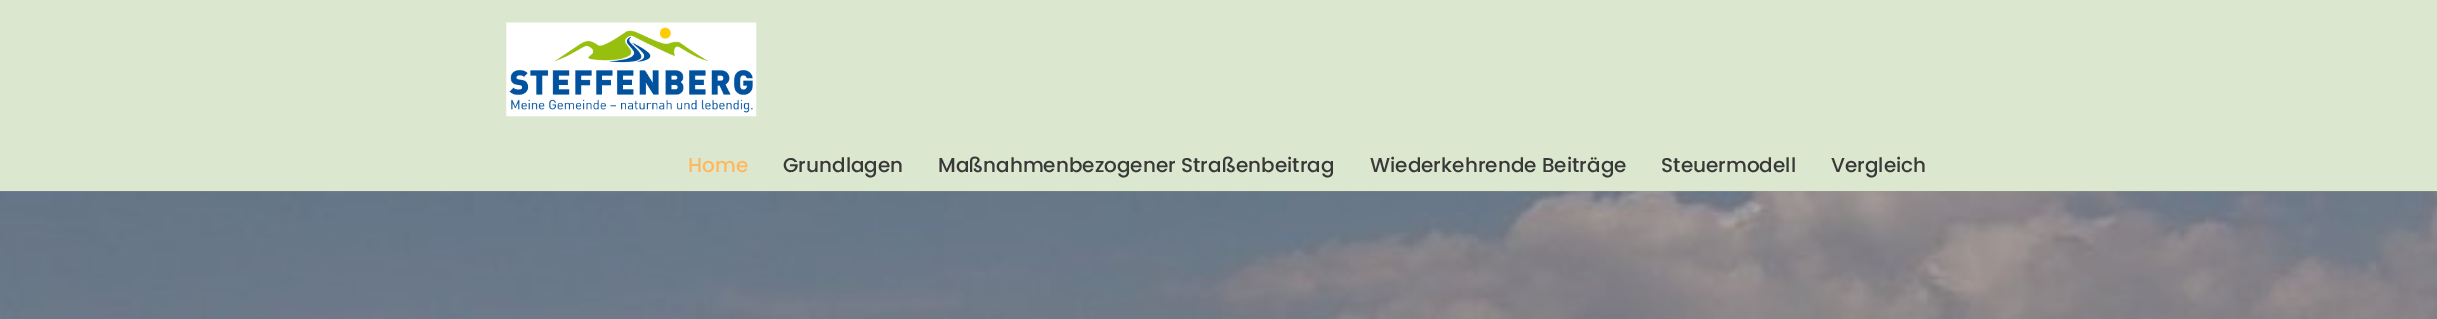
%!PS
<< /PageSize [2437 319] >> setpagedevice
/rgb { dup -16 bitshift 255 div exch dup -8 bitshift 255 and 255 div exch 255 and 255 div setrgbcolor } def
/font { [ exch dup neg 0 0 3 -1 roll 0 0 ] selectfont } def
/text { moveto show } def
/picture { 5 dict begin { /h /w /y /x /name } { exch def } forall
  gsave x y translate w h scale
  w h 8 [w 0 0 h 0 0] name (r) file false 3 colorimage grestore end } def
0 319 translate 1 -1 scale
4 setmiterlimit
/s1 { /Poppins-Medium 20 font 16#FEB960 rgb } def
/s2 { /Poppins-Medium 20 font 16#393939 rgb } def
16#DBE8CF rgb
0 0 2437 319 rectfill
(pic1.raw) 506 22 251 95 picture
s1
(Home) 688 172 text
s2
(Grundlagen) 783 172 text
(Maßnahmenbezogener Straßenbeitrag) 938 172 text
(Wiederkehrende Beiträge) 1370 172 text
(Steuermodell) 1661 172 text
(Vergleich) 1831 172 text
(pic2.raw) 0 191 2437 128 picture
showpage
